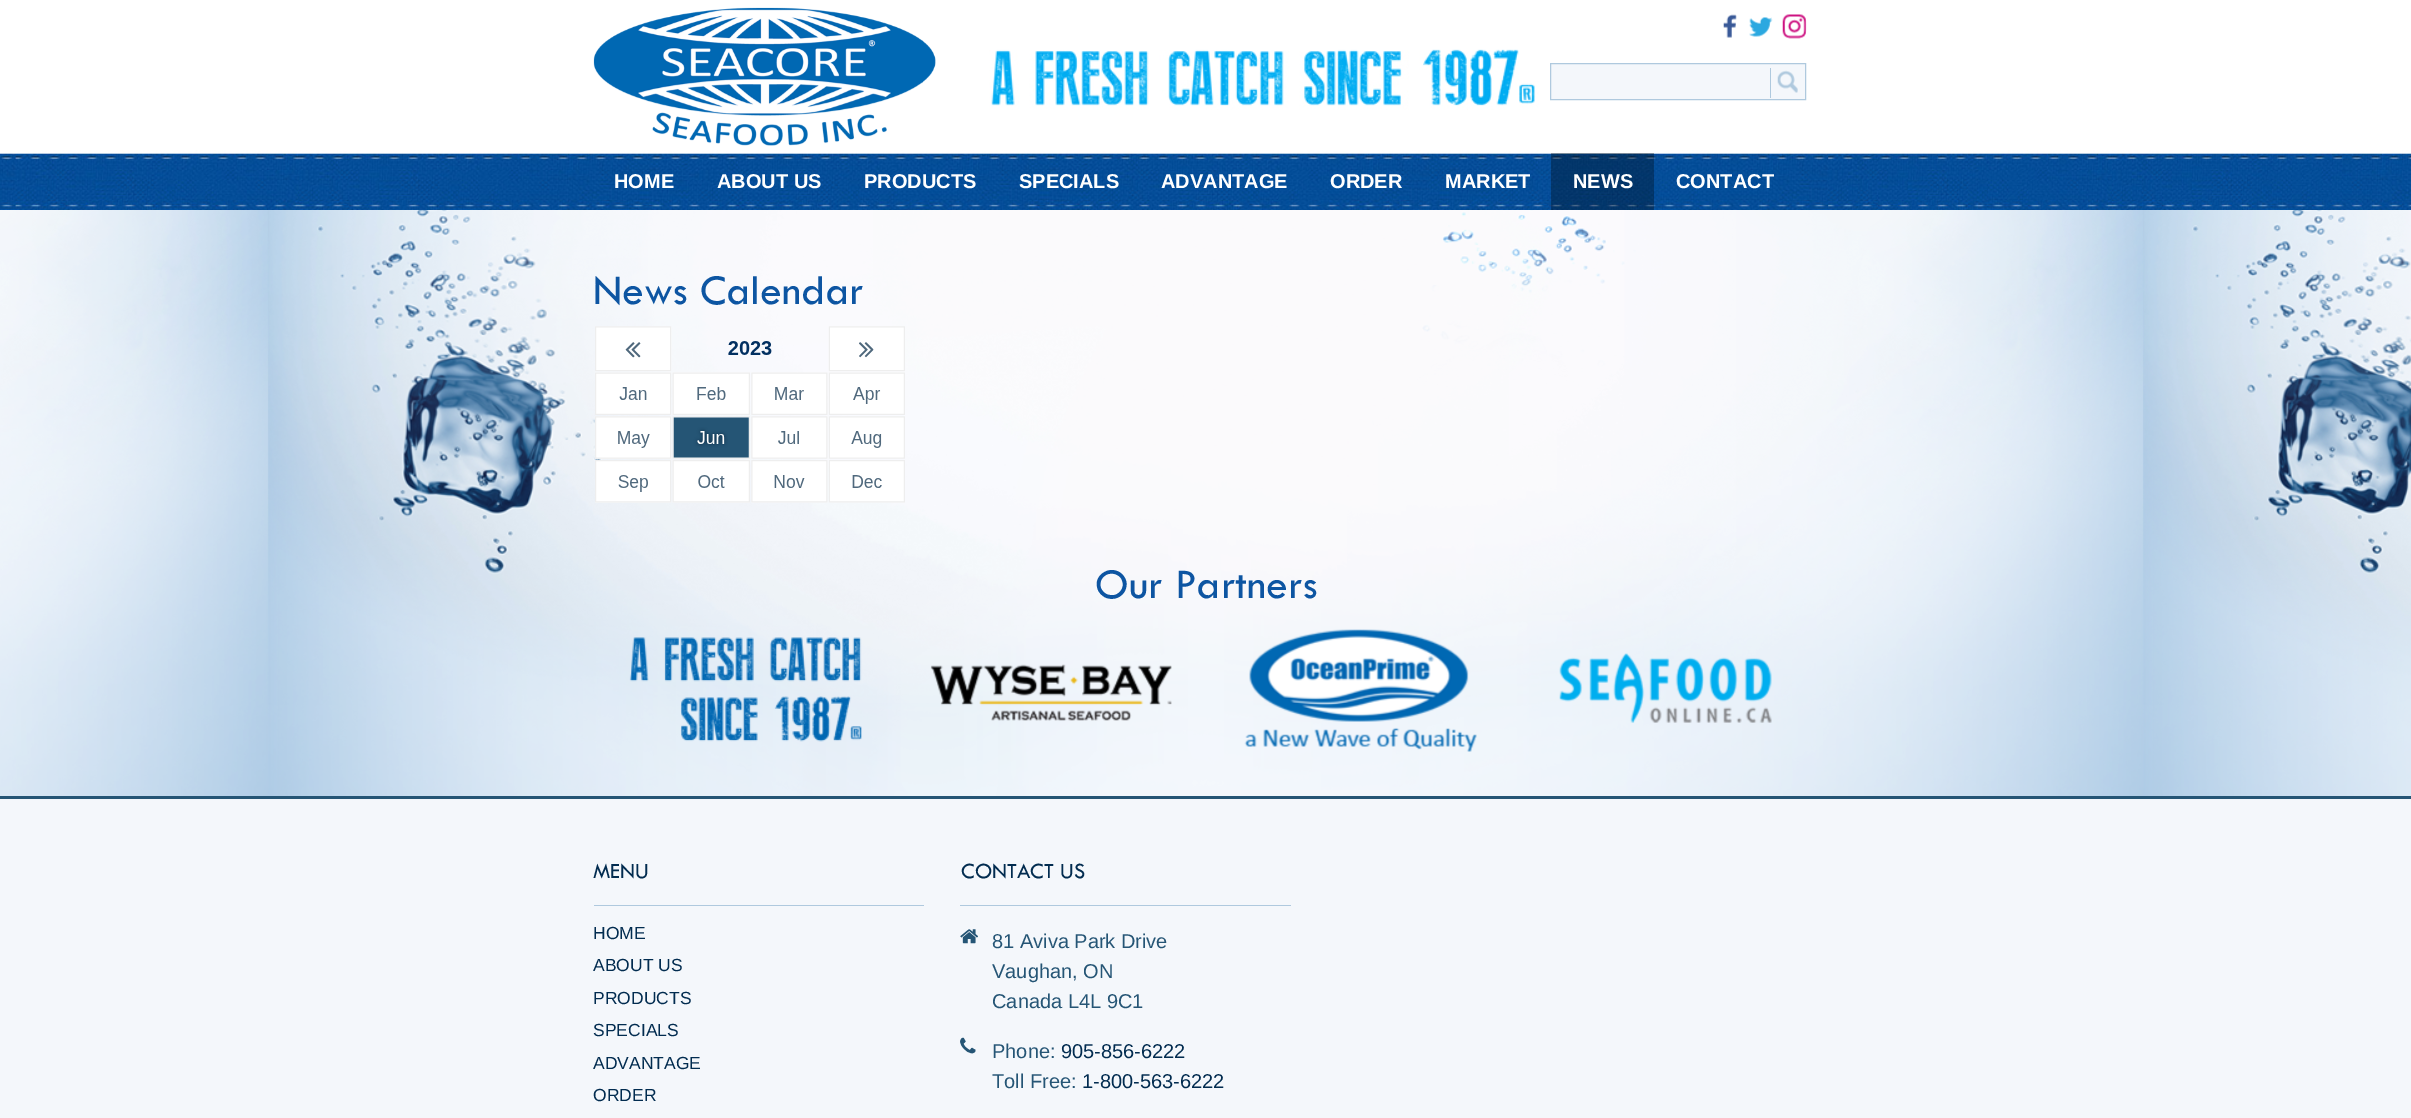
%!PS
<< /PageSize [2411 1118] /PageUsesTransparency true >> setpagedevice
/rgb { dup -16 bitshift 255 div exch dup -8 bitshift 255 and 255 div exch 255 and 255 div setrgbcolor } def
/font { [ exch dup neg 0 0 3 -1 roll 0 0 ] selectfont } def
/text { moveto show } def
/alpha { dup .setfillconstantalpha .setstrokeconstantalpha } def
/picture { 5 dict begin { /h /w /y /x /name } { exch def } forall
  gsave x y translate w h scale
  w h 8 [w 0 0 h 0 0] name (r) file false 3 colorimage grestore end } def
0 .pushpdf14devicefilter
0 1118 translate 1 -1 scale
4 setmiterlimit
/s1 { /LiberationSans-Bold 20 font 16#FFFFFF rgb } def
/s2 { /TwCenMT-Regular 43.75 font 16#0D55A2 rgb } def
/s3 { /TwCenMT-Regular 22.5 font 16#022C50 rgb } def
/s4 { /LiberationSans-Regular 17.5 font 16#022C50 rgb } def
/s5 { /LiberationSans-Regular 20 font 16#255575 rgb } def
/s6 { /LiberationSans-Regular 20 font 16#022C50 rgb } def
16#FFFFFF rgb
0 0 2411 1118 rectfill
(pic1.raw) 0 49 2411 161 picture
(pic2.raw) 593 7 343 139 picture
(pic3.raw) 1723 14 14 24 picture
(pic4.raw) 1749 17 24 20 picture
(pic5.raw) 1782 14 25 25 picture
16#F4F7FB rgb
1550.5 63.5 moveto 1805.5 63.5 lineto 1805.5 99.5 lineto 1550.5 99.5 lineto closepath gsave fill grestore
16#AFC9DE rgb
stroke
1770 68 1 30 rectfill
(pic6.raw) 1777 70 21 23 picture
s1
(HOME) 614 188 text
(ABOUT US) 717 188 text
(PRODUCTS) 864 188 text
(SPECIALS) 1019 188 text
(ADVANTAGE) 1161 188 text
(ORDER) 1330 188 text
(MARKET) 1445 188 text
0.3 alpha
16#000000 rgb
1551 153 103 57 rectfill
1 alpha
s1
(NEWS) 1573 188 text
(CONTACT) 1676 188 text
(pic7.raw) 0 210 2411 586 picture
s2
(News Calendar) 593 304 text
(pic8.raw) 595 326 310 177 picture
(Our Partners) 1095 598 text
(pic9.raw) 629 637 233 105 picture
(pic10.raw) 930 664 242 57 picture
(pic11.raw) 1244 629 233 123 picture
(pic12.raw) 1559 653 213 70 picture
16#F4F7FB rgb
0 799 2411 319 rectfill
16#255575 rgb
0 796 2411 3 rectfill
s3
(MENU) 593 878 text
16#AFC9DE rgb
594 905 330 1 rectfill
s4
(HOME) 593 939 text
(ABOUT US) 593 971 text
(PRODUCTS) 593 1004 text
(SPECIALS) 593 1036 text
(ADVANTAGE) 593 1069 text
(ORDER) 593 1101 text
s3
(CONTACT US) 961 878 text
16#AFC9DE rgb
960 905 331 1 rectfill
(pic13.raw) 960 929 18 15 picture
s5
(81 Aviva Park Drive) 992 948 text
(Vaughan, ON) 992 978 text
(Canada L4L 9C1) 992 1008 text
(pic14.raw) 960 1037 16 17 picture
(Phone:) 992 1058 text
s6
(905-856-6222) 1061 1058 text
s5
(Toll Free:) 992 1088 text
s6
(1-800-563-6222) 1082 1088 text
.poppdf14devicefilter showpage
